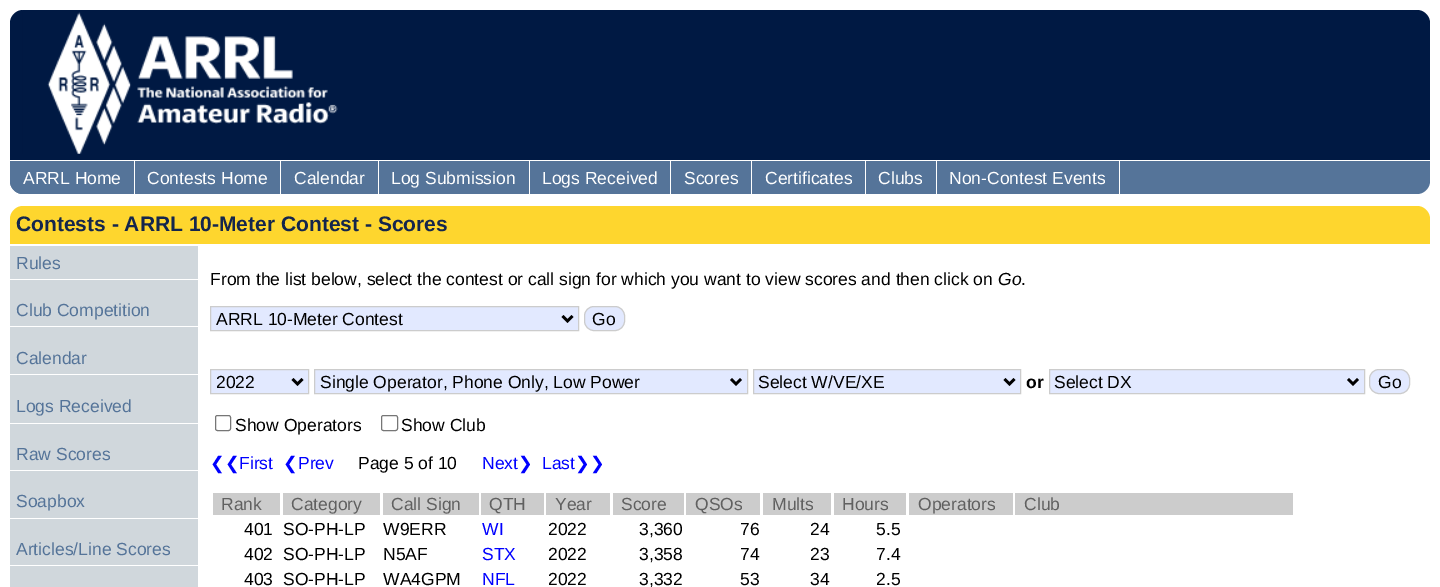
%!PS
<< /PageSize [1440 587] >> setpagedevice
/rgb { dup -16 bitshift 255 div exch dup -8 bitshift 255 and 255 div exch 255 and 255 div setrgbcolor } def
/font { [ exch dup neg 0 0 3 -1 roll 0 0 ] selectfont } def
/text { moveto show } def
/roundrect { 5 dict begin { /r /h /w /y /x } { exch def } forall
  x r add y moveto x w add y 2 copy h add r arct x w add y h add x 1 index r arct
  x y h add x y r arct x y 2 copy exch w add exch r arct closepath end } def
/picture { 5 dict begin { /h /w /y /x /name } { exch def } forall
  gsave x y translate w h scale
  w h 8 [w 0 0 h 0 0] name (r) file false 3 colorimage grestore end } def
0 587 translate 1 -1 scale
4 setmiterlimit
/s1 { /LiberationSans-Regular 17.5 font 16#FFFFFF rgb } def
/s2 { /LiberationSans-Bold 21 font 16#14264D rgb } def
/s3 { /LiberationSans-Regular 17.5 font 16#557499 rgb } def
/s4 { /LiberationSans-Regular 17.5 font 16#000000 rgb } def
/s5 { /LiberationSans-Italic 17.5 font 16#000000 rgb } def
/s6 { /LiberationSans-Bold 17.5 font 16#000000 rgb } def
/s7 { /DejaVuSans-Regular 17.5 font 16#0000FF rgb } def
/s8 { /LiberationSans-Regular 17.5 font 16#0000FF rgb } def
/s9 { /LiberationSans-Regular 17.5 font 16#606060 rgb } def
16#FFFFFF rgb
0 0 1440 587 rectfill
16#001943 rgb
23 10 moveto 1417 10 lineto 1424 10 1430 16 1430 23 curveto 1430 160 lineto 10 160 lineto 10 23 lineto 10 16 16 10 23 10 curveto closepath fill
(pic1.raw) 22 10 316 144 picture
16#557499 rgb
10 161 moveto 1430 161 lineto 1430 181 lineto 1430 188 1424 194 1417 194 curveto 23 194 lineto 16 194 10 188 10 181 curveto closepath fill
10 161 moveto 135 161 lineto 135 194 lineto 23 194 lineto 16 194 10 188 10 181 curveto closepath fill
16#FFFFFF rgb
134 161 1 33 rectfill
s1
(ARRL Home) 23 184 text
280 161 1 33 rectfill
(Contests Home) 147 184 text
378 161 1 33 rectfill
(Calendar) 294 184 text
529 161 1 33 rectfill
(Log Submission) 391 184 text
670 161 1 33 rectfill
(Logs Received) 542 184 text
751 161 1 33 rectfill
(Scores) 684 184 text
865 161 1 33 rectfill
(Certificates) 765 184 text
936 161 1 33 rectfill
(Clubs) 878 184 text
1119 161 1 33 rectfill
(Non-Contest Events) 949 184 text
16#FED62E rgb
23 206 moveto 1417 206 lineto 1424 206 1430 212 1430 219 curveto 1430 244 lineto 10 244 lineto 10 219 lineto 10 212 16 206 23 206 curveto closepath fill
s2
(Contests - ARRL 10-Meter Contest - Scores) 16 231 text
16#D0D7DC rgb
10 246 188 341 rectfill
16#FFFFFF rgb
10 279 188 1 rectfill
s3
(Rules) 16 269 text
16#FFFFFF rgb
10 326 188 1 rectfill
s3
(Club Competition) 16 316 text
16#FFFFFF rgb
10 374 188 1 rectfill
s3
(Calendar) 16 364 text
16#FFFFFF rgb
10 423 188 1 rectfill
s3
(Logs Received) 16 412 text
16#FFFFFF rgb
10 470 188 1 rectfill
s3
(Raw Scores) 16 460 text
16#FFFFFF rgb
10 518 188 1 rectfill
s3
(Soapbox) 16 507 text
16#FFFFFF rgb
10 565 188 1 rectfill
s3
(Articles/Line Scores) 16 555 text
s4
(From the list below, select the contest or call sign for which you want to view scores and then click on) 210 285 text
s5
(Go) 998 285 text
s4
(.) 1021 285 text
16#E2E9FF rgb
210.5 306.5 moveto 578.5 306.5 lineto 578.5 330.5 lineto 210.5 330.5 lineto closepath gsave fill grestore
16#CCCCCC rgb
stroke
16#000000 rgb
2.5 setlinewidth
562.5 316 moveto 567.5 321 lineto 572.5 316 lineto stroke
(ARRL 10-Meter Contest) 216 325 text
16#E2E9FF rgb
584.5 306.5 40 24 9.5 roundrect gsave fill grestore
16#CCCCCC rgb
1 setlinewidth
stroke
s4
(Go) 592 325 text
16#E2E9FF rgb
210.5 369.5 moveto 308.5 369.5 lineto 308.5 393.5 lineto 210.5 393.5 lineto closepath gsave fill grestore
16#CCCCCC rgb
stroke
16#000000 rgb
2.5 setlinewidth
292.5 379 moveto 297.5 384 lineto 302.5 379 lineto stroke
(2022) 216 388 text
16#E2E9FF rgb
314.5 369.5 moveto 747.5 369.5 lineto 747.5 393.5 lineto 314.5 393.5 lineto closepath gsave fill grestore
16#CCCCCC rgb
1 setlinewidth
stroke
16#000000 rgb
2.5 setlinewidth
731 379 moveto 736 384 lineto 741 379 lineto stroke
(Single Operator, Phone Only, Low Power) 320 388 text
16#E2E9FF rgb
753.5 369.5 moveto 1020.5 369.5 lineto 1020.5 393.5 lineto 753.5 393.5 lineto closepath gsave fill grestore
16#CCCCCC rgb
1 setlinewidth
stroke
16#000000 rgb
2.5 setlinewidth
1004.5 379 moveto 1009.5 384 lineto 1014.5 379 lineto stroke
(Select W/VE/XE) 758 388 text
s6
(or) 1026 388 text
16#E2E9FF rgb
1049.5 369.5 moveto 1364.5 369.5 lineto 1364.5 393.5 lineto 1049.5 393.5 lineto closepath gsave fill grestore
16#CCCCCC rgb
1 setlinewidth
stroke
16#000000 rgb
2.5 setlinewidth
1348 379 moveto 1353 384 lineto 1358 379 lineto stroke
s4
(Select DX) 1054 388 text
16#E2E9FF rgb
1369.5 369.5 40 24 9.5 roundrect gsave fill grestore
16#CCCCCC rgb
1 setlinewidth
stroke
s4
(Go) 1378 388 text
16#767676 rgb
215.5 415.5 15 15 2 roundrect stroke
s4
(Show Operators) 235 431 text
16#767676 rgb
381.5 415.5 16 15 2 roundrect stroke
s4
(Show Club) 401 431 text
s7
(❮❮) 210 469 text
s8
(First) 239 469 text
s7
(❮) 283 469 text
s8
(Prev) 298 469 text
s4
(Page 5 of 10) 358 469 text
s8
(Next) 482 469 text
s7
(❯) 518 469 text
s8
(Last) 542 469 text
s7
(❯❯) 575 469 text
16#CCCCCC rgb
213 493 67 22 rectfill
s9
(Rank) 221 510 text
16#CCCCCC rgb
283 493 97 22 rectfill
s9
(Category) 291 510 text
16#CCCCCC rgb
383 493 96 22 rectfill
s9
(Call Sign) 391 510 text
16#CCCCCC rgb
481 493 63 22 rectfill
s9
(QTH) 489 510 text
16#CCCCCC rgb
546 493 64 22 rectfill
s9
(Year) 555 510 text
16#CCCCCC rgb
613 493 71 22 rectfill
s9
(Score) 621 510 text
16#CCCCCC rgb
686 493 74 22 rectfill
s9
(QSOs) 695 510 text
16#CCCCCC rgb
763 493 68 22 rectfill
s9
(Mults) 772 510 text
16#CCCCCC rgb
834 493 72 22 rectfill
s9
(Hours) 842 510 text
16#CCCCCC rgb
909 493 104 22 rectfill
s9
(Operators) 918 510 text
16#CCCCCC rgb
1015 493 278 22 rectfill
s9
(Club) 1024 510 text
s4
(401) 244 535 text
(SO-PH-LP) 283 535 text
(W9ERR) 383 535 text
s8
(WI) 482 535 text
s4
(2022) 548 535 text
(3,360) 639 535 text
(76) 740 535 text
(24) 810 535 text
(5.5) 876 535 text
(402) 244 560 text
(SO-PH-LP) 283 560 text
(N5AF) 383 560 text
s8
(STX) 482 560 text
s4
(2022) 548 560 text
(3,358) 639 560 text
(74) 740 560 text
(23) 810 560 text
(7.4) 876 560 text
(403) 244 585 text
(SO-PH-LP) 283 585 text
(WA4GPM) 383 585 text
s8
(NFL) 482 585 text
s4
(2022) 548 585 text
(3,332) 639 585 text
(53) 740 585 text
(34) 810 585 text
(2.5) 876 585 text
showpage
